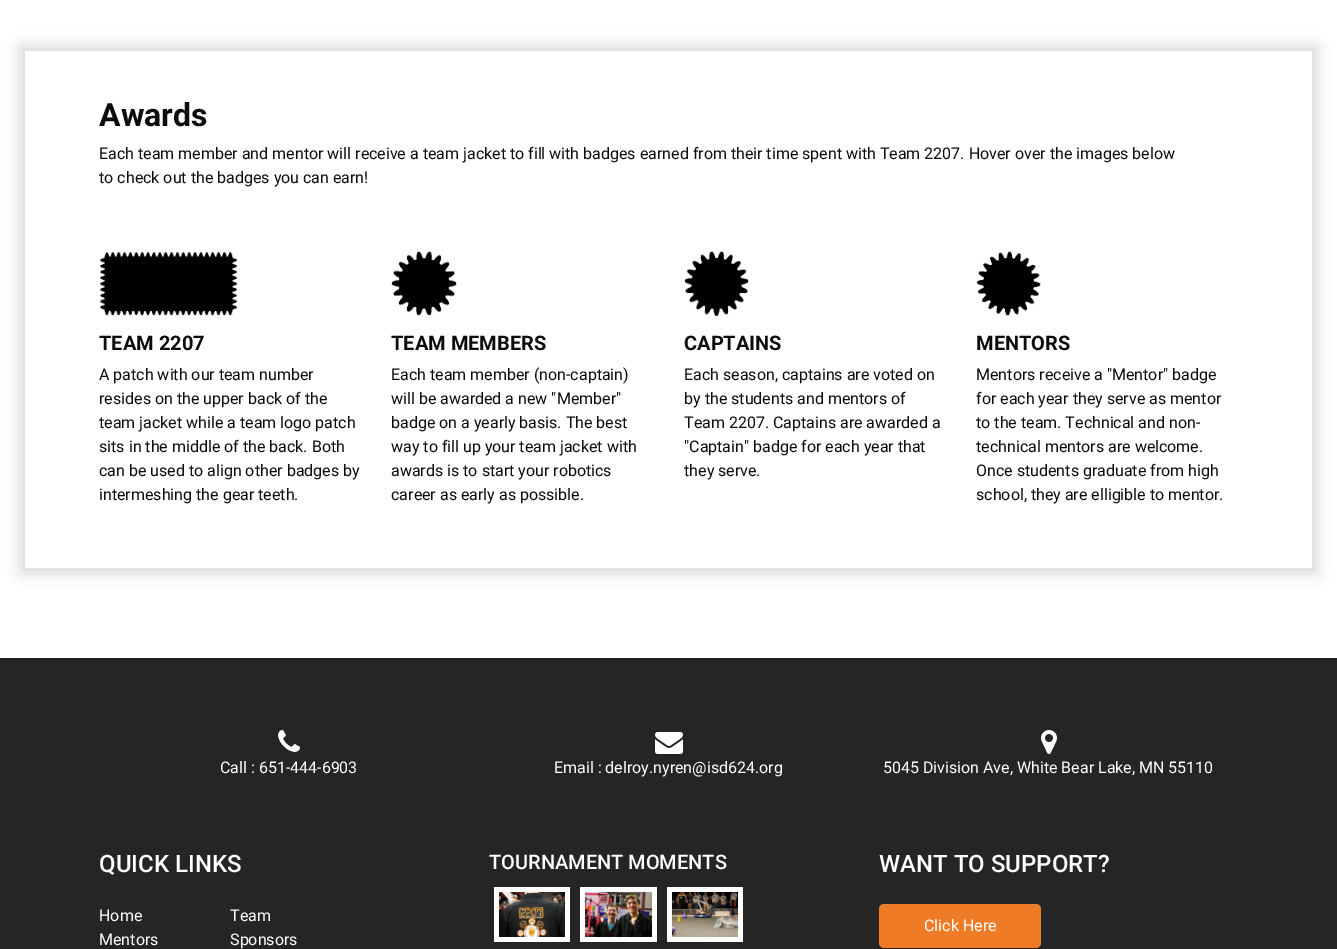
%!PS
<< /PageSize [1337 949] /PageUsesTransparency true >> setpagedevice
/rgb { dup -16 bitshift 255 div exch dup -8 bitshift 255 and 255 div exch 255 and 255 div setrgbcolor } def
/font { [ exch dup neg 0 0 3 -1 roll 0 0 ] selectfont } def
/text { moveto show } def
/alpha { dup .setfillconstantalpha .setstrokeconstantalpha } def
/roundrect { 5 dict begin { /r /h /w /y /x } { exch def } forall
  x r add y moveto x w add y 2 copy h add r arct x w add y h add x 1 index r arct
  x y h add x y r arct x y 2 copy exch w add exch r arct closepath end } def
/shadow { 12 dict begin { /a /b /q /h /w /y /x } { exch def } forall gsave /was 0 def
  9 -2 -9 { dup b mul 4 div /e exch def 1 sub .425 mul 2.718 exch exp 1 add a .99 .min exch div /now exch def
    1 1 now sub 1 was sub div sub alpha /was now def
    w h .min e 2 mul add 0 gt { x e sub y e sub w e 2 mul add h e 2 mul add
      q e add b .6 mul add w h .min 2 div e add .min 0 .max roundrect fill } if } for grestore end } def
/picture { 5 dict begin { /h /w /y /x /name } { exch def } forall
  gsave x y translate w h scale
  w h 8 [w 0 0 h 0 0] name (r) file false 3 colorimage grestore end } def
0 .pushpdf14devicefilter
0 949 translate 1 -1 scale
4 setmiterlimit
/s1 { /Roboto-Bold 32 font 16#0C0C0C rgb } def
/s2 { /Roboto-Regular 16 font 16#0C0C0C rgb } def
/s3 { /Roboto-Bold 20 font 16#0C0C0C rgb } def
/s4 { /Roboto-Regular 16 font 16#FFFFFF rgb } def
/s5 { /Roboto-Medium 24 font 16#FFFFFF rgb } def
/s6 { /Roboto-Medium 20 font 16#FFFFFF rgb } def
16#FFFFFF rgb
0 0 1337 949 rectfill
gsave
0 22 moveto 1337 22 lineto 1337 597 lineto 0 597 lineto closepath 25 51 moveto 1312 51 lineto 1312 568 lineto 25 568 lineto closepath eoclip newpath
16#000000 rgb
20 46 1297 527 0 7.5 0.15 shadow
grestore
s1
(Awards) 99 126 text
s2
(Each team member and mentor will receive a team jacket to fill with badges earned from their time spent with Team 2207. Hover over the images below) 99 159 text
(to check out the badges you can earn!) 99 183 text
(pic1.raw) 100 251 138 65 picture
s3
(TEAM 2207) 99 350 text
s2
(A patch with our team number) 99 380 text
(resides on the upper back of the) 99 404 text
(team jacket while a team logo patch) 99 428 text
(sits in the middle of the back. Both) 99 452 text
(can be used to align other badges by) 99 476 text
(intermeshing the gear teeth.) 99 500 text
(pic2.raw) 391 251 66 65 picture
s3
(TEAM MEMBERS) 391 350 text
s2
(Each team member \(non-captain\)) 391 380 text
(will be awarded a new "Member") 391 404 text
(badge on a yearly basis. The best) 391 428 text
(way to fill up your team jacket with) 391 452 text
(awards is to start your robotics) 391 476 text
(career as early as possible.) 391 500 text
(pic3.raw) 684 251 65 65 picture
s3
(CAPTAINS) 684 350 text
s2
(Each season, captains are voted on) 684 380 text
(by the students and mentors of) 684 404 text
(Team 2207. Captains are awarded a) 684 428 text
("Captain" badge for each year that) 684 452 text
(they serve.) 684 476 text
(pic4.raw) 976 251 65 65 picture
s3
(MENTORS) 976 350 text
s2
(Mentors receive a "Mentor" badge) 976 380 text
(for each year they serve as mentor) 976 404 text
(to the team. Technical and non-) 976 428 text
(technical mentors are welcome.) 976 452 text
(Once students graduate from high) 976 476 text
(school, they are elligible to mentor.) 976 500 text
16#252525 rgb
0 658 1337 291 rectfill
(pic5.raw) 278 730 22 22 picture
s4
(Call : 651-444-6903) 220 773 text
(pic6.raw) 655 732 28 22 picture
(Email : delroy.nyren@isd624.org) 554 773 text
(pic7.raw) 1041 730 16 24 picture
(5045 Division Ave, White Bear Lake, MN 55110) 883 773 text
s5
(QUICK LINKS) 99 872 text
s4
(Home) 99 921 text
(Team) 230 921 text
(Mentors) 99 945 text
(Sponsors) 230 945 text
s6
(TOURNAMENT MOMENTS) 489 869 text
494 887 76 55 rectfill
(pic8.raw) 499 892 66 45 picture
580 887 77 55 rectfill
(pic9.raw) 585 892 67 45 picture
667 887 76 55 rectfill
(pic10.raw) 672 892 66 45 picture
s5
(WANT TO SUPPORT?) 879 872 text
16#F07B26 rgb
879 904 162 44 5 roundrect fill
s4
(Click Here) 924 931 text
.poppdf14devicefilter showpage
